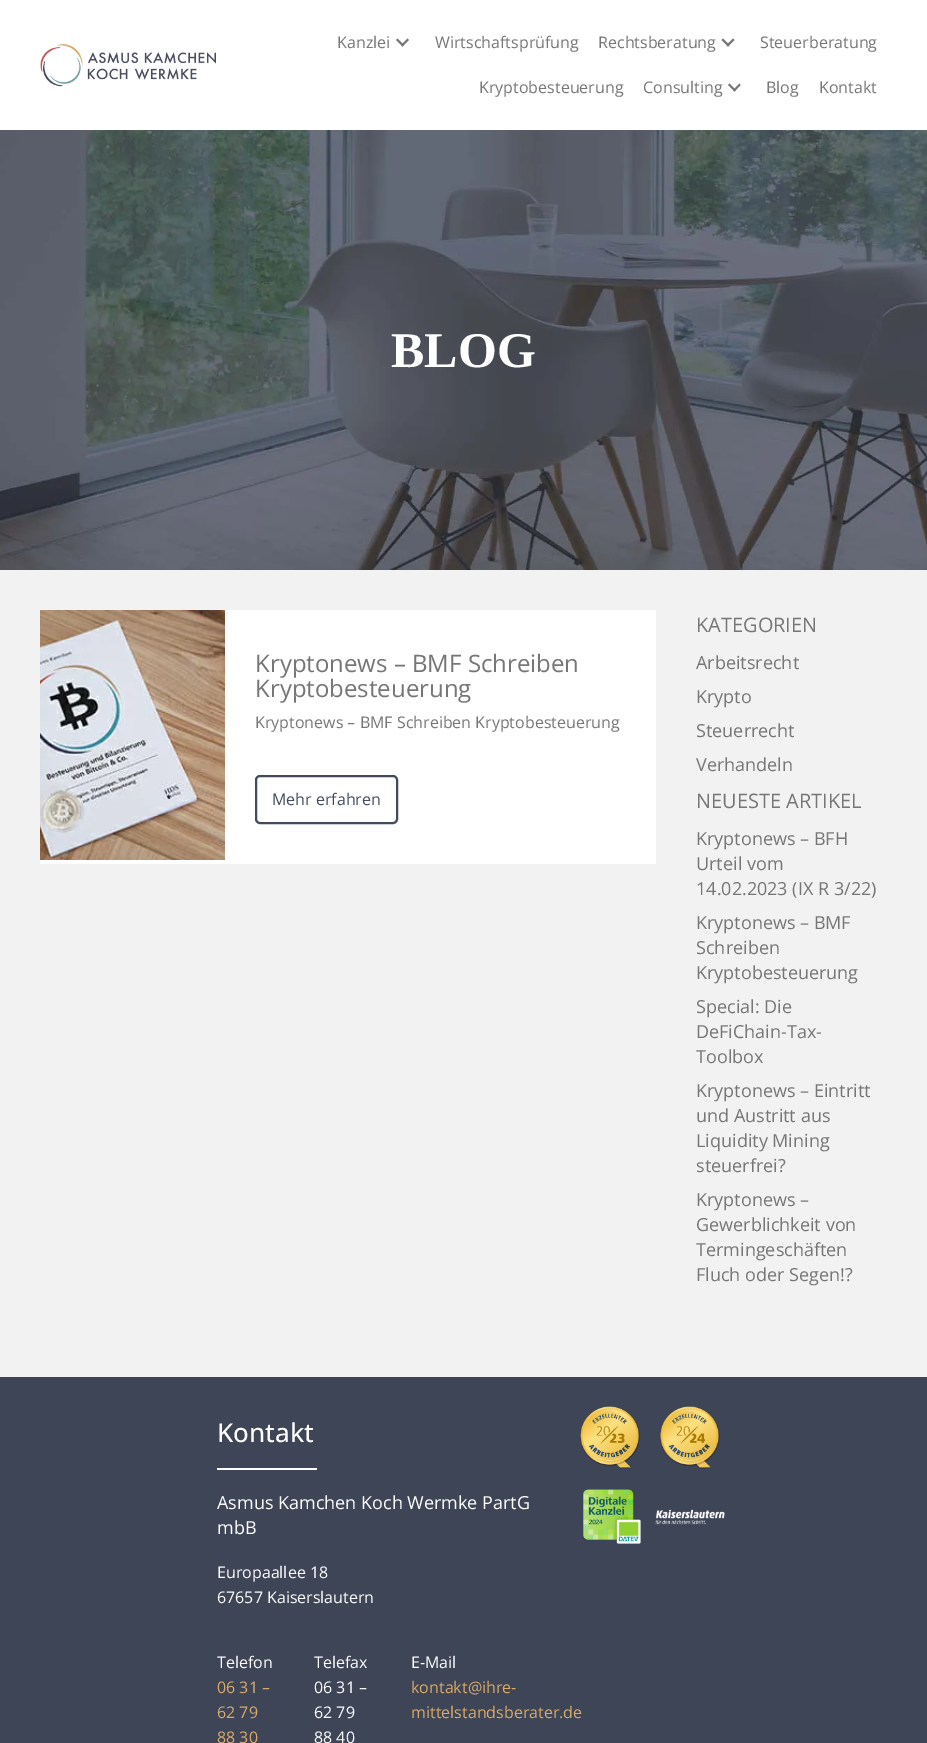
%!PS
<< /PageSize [927 1743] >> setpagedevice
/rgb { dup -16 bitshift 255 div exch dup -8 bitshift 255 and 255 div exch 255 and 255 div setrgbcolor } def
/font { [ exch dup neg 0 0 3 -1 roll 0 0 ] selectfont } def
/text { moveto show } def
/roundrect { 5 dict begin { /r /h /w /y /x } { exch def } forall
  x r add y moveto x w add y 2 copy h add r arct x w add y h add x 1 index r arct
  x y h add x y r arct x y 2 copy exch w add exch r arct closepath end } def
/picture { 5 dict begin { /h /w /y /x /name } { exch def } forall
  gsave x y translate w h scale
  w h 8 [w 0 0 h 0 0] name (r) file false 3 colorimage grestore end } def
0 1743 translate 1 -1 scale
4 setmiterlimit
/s1 { /OpenSans-Regular 16 font 16#767676 rgb } def
/s2 { /LiberationSerif-Bold 50 font 16#FFFFFF rgb } def
/s3 { /OpenSans-Regular 24 font 16#767676 rgb } def
/s4 { /OpenSans-Regular 16 font 16#434A5B rgb } def
/s5 { /OpenSans-Regular 20 font 16#767676 rgb } def
/s6 { /OpenSans-Regular 18 font 16#767676 rgb } def
/s7 { /OpenSans-Medium 26 font 16#FFFFFF rgb } def
/s8 { /OpenSans-Regular 18 font 16#FFFFFF rgb } def
/s9 { /OpenSans-Regular 16 font 16#FFFFFF rgb } def
/s10 { /OpenSans-Regular 16 font 16#D9AB69 rgb } def
16#FFFFFF rgb
0 0 927 1743 rectfill
(pic1.raw) 40 44 176 43 picture
s1
(Kanzlei) 337 48 text
407.5 38.5 moveto 409 40 lineto 402.5 46.5 lineto 401 45 lineto closepath fill
397.5 38.5 moveto 404 45 lineto 402.5 46.5 lineto 396 40 lineto closepath fill
(Wirtschaftsprüfung) 435 48 text
(Rechtsberatung) 598 48 text
733 38.5 moveto 734.5 40 lineto 728 46.5 lineto 726.5 45 lineto closepath fill
723 38.5 moveto 729.5 45 lineto 728 46.5 lineto 721.5 40 lineto closepath 739.5 83.5 moveto 740.5 85 lineto 734.5 91.5 lineto 733 90 lineto closepath fill
(Steuerberatung) 760 48 text
(Kryptobesteuerung) 479 93 text
(Consulting) 643 93 text
729.5 83.5 moveto 736 90 lineto 734.5 91.5 lineto 728 85 lineto closepath fill
(Blog) 766 93 text
(Kontakt) 819 93 text
(pic2.raw) 0 130 927 440 picture
s2
(BLOG) 391 367 text
16#F2F2F2 rgb
0 570 927 807 rectfill
16#FFFFFF rgb
40 610 616 254 rectfill
(pic3.raw) 40 610 185 250 picture
s3
(Kryptonews – BMF Schreiben) 255 672 text
(Kryptobesteuerung) 255 697 text
s1
(Kryptonews – BMF Schreiben Kryptobesteuerung) 255 728 text
16#434A5B rgb
2 setlinewidth
256 776 141 47 4 roundrect stroke
(Mehr erfahren) 272 805 text
s5
(KATEGORIEN) 696 632 text
s6
(Arbeitsrecht) 696 669 text
(Krypto) 696 703 text
(Steuerrecht) 696 737 text
(Verhandeln) 696 771 text
s5
(NEUESTE ARTIKEL) 696 808 text
s6
(Kryptonews – BFH) 696 845 text
(Urteil vom) 696 870 text
(14.02.2023 \(IX R 3/22\)) 696 895 text
(Kryptonews – BMF) 696 929 text
(Schreiben) 696 954 text
(Kryptobesteuerung) 696 979 text
(Special: Die) 696 1013 text
(DeFiChain-Tax-) 696 1038 text
(Toolbox) 696 1063 text
(Kryptonews – Eintritt) 696 1097 text
(und Austritt aus) 696 1122 text
(Liquidity Mining) 696 1147 text
(steuerfrei?) 696 1172 text
(Kryptonews –) 696 1206 text
(Gewerblichkeit von) 696 1231 text
(Termingeschäften) 696 1256 text
(Fluch oder Segen!?) 696 1281 text
16#3E4556 rgb
0 1377 927 366 rectfill
s7
(Kontakt) 217 1442 text
217 1468 100 2 rectfill
s8
(Asmus Kamchen Koch Wermke PartG) 217 1509 text
(mbB) 217 1534 text
s9
(Europaallee 18) 217 1578 text
(67657 Kaiserslautern) 217 1603 text
(Telefon) 217 1668 text
s10
(06 31 –) 217 1693 text
(62 79) 217 1718 text
(88 30) 217 1743 text
s9
(Telefax) 314 1668 text
(06 31 –) 314 1693 text
(62 79) 314 1718 text
(88 40) 314 1743 text
(E-Mail) 411 1668 text
s10
(kontakt@ihre-) 411 1693 text
(mittelstandsberater.de) 411 1718 text
(pic4.raw) 580 1406 60 63 picture
(pic5.raw) 582 1488 60 57 picture
(pic6.raw) 660 1406 60 63 picture
(pic7.raw) 655 1509 70 16 picture
showpage
